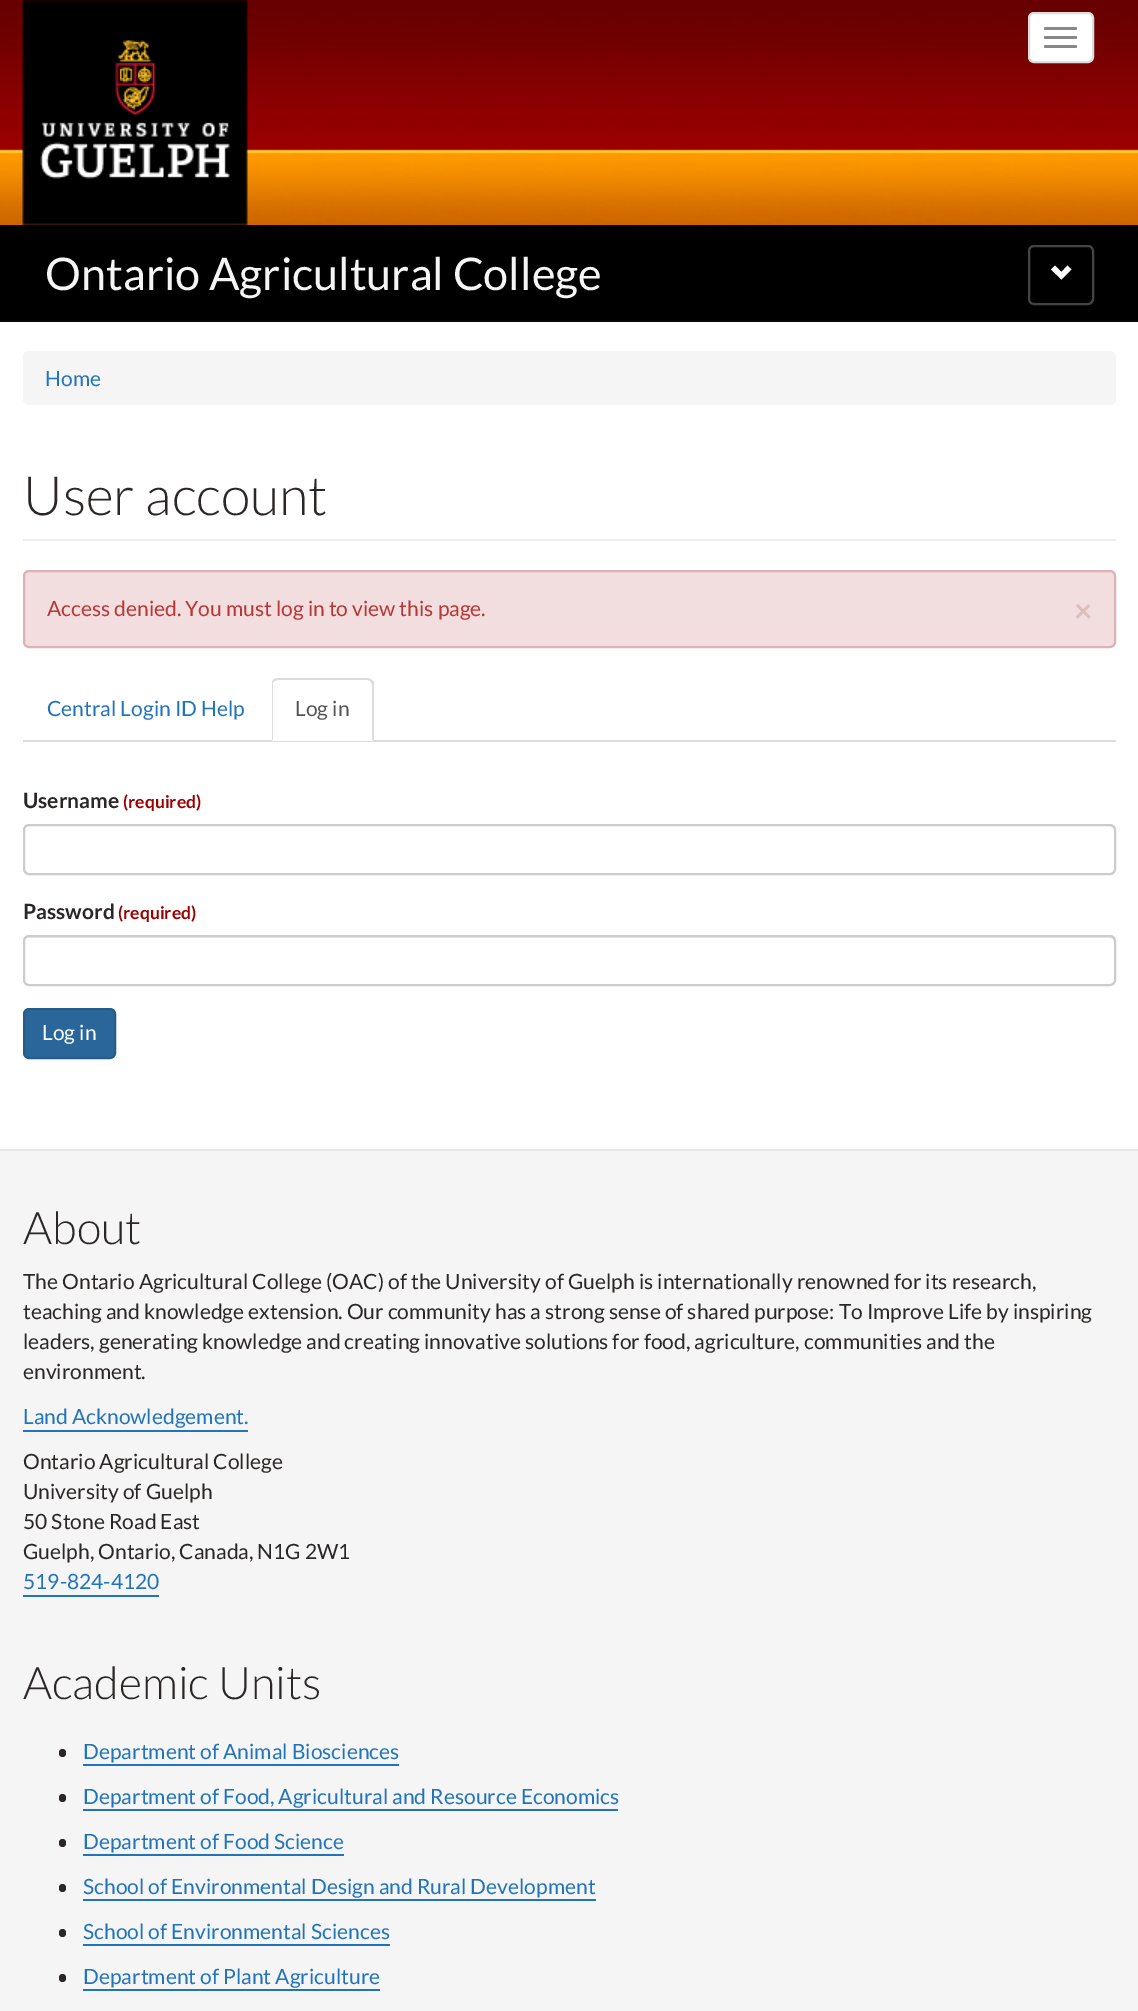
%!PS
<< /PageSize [1138 2011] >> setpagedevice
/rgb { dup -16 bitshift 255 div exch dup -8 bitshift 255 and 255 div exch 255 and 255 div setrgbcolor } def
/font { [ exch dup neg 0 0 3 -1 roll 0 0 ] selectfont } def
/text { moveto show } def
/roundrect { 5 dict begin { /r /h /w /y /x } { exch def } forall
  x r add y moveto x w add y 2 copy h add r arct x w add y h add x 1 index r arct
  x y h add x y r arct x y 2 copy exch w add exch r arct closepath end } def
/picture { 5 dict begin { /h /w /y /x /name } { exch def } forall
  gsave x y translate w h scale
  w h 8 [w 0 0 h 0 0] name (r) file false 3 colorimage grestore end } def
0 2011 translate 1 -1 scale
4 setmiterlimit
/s1 { /Lato-Regular 45 font 16#F5F5F5 rgb } def
/s2 { /Lato-Regular 21 font 16#2174BB rgb } def
/s3 { /Lato-Light 54 font 16#2C2727 rgb } def
/s4 { /Lato-Regular 21 font 16#B83635 rgb } def
/s5 { /Lato-Bold 32 font 16#DFBDBD rgb } def
/s6 { /Lato-Regular 21 font 16#555555 rgb } def
/s7 { /Lato-Bold 21 font 16#2C2727 rgb } def
/s8 { /Lato-Bold 17.5 font 16#990000 rgb } def
/s9 { /Lato-Regular 21 font 16#FFFFFF rgb } def
/s10 { /Lato-Light 45 font 16#2C2727 rgb } def
/s11 { /Lato-Regular 21 font 16#2C2727 rgb } def
16#FFFFFF rgb
0 0 1138 2011 rectfill
(pic1.raw) 0 0 1138 225 picture
(pic2.raw) 23 0 1093 225 picture
(pic3.raw) 22 0 226 225 picture
1029 13 64 49 5 roundrect gsave fill grestore
16#DDDDDD rgb
2 setlinewidth
stroke
16#888888 rgb
1044 27 33 3 1.5 roundrect fill
1044 36 33 3 1.5 roundrect fill
1044 45 33 3 1.5 roundrect fill
16#000000 rgb
0 225 1138 95 rectfill
16#080808 rgb
0 320 1138 2 rectfill
s1
(Ontario Agricultural College) 45 290 text
16#444444 rgb
1029 246 64 58 5 roundrect stroke
16#FFFFFF rgb
1051 269.5 moveto 1061.5 279.5 lineto 1071.5 269.5 lineto 1067.5 265.5 lineto 1061.5 272 lineto 1055 265.5 lineto closepath fill
16#F5F5F5 rgb
23 351 1093 54 6 roundrect fill
s2
(Home) 45 386 text
16#EEEEEE rgb
23 539 1093 2 rectfill
s3
(User account) 23 515 text
16#F2DEDE rgb
24 571 1091 76 5 roundrect gsave fill grestore
16#E0B0B8 rgb
stroke
s4
(Access denied. You must log in to view this page.) 47 616 text
s5
(×) 1074 622 text
16#DDDDDD rgb
23 740 1093 2 rectfill
s2
(Central Login ID Help) 47 716 text
16#FFFFFF rgb
278 678 moveto 368 678 lineto 371.5 678 374 680.5 374 684 curveto 374 741 lineto 272 741 lineto 272 684 lineto 272 680.5 274.5 678 278 678 curveto closepath fill
16#DDDDDD rgb
278 678 moveto 276 678 274 679 273 680 curveto 275 681 lineto 278 680 lineto 368 680 lineto 370 681 lineto 372 680 lineto 371 679 369 678 368 678 curveto closepath fill
374 682 moveto 374 741 lineto 372 740 lineto 372 684 lineto 370 681 lineto 372 680 lineto closepath fill
273 680 moveto 272 681 272 683 272 684 curveto 272 740 lineto 273 740 lineto 273 683 lineto 275 681 lineto closepath fill
s6
(Log in) 295 716 text
s7
(Username) 23 808 text
s8
(\(required\)) 123 808 text
16#ECECEC rgb
28 826 moveto 1110 826 lineto 1112 826 1114 829 1114 831 curveto 1114 871 lineto 1115 870 1115 869 1115 868 curveto 1115 830 lineto 1115 827 1113 825 1110 825 curveto 29 825 lineto 26 825 24 827 24 830 curveto 24 831 lineto 24 829 26 826 28 826 curveto closepath fill
16#CCCCCC rgb
24 825 1091 49 5 roundrect stroke
s7
(Password) 23 919 text
s8
(\(required\)) 118 919 text
16#ECECEC rgb
28 938 moveto 1110 938 lineto 1112 938 1114 940 1114 942 curveto 1114 982 lineto 1115 981 1115 980 1115 979 curveto 1115 941 lineto 1115 938 1113 936 1110 936 curveto 29 936 lineto 26 936 24 938 24 941 curveto 24 942 lineto 24 940 26 938 28 938 curveto closepath fill
16#CCCCCC rgb
24 936 1091 49 5 roundrect stroke
16#2B669A rgb
24 1009 91 49 5 roundrect gsave fill grestore
16#265C8A rgb
stroke
s9
(Log in) 42 1040 text
16#F5F5F5 rgb
0 1151 1138 860 rectfill
16#E5E5E5 rgb
0 1149 1138 2 rectfill
s10
(About) 23 1244 text
s11
(The Ontario Agricultural College \(OAC\) of the University of Guelph is internationally renowned for its research,) 23 1289 text
(teaching and knowledge extension. Our community has a strong sense of shared purpose: To Improve Life by inspiring) 23 1319 text
(leaders, generating knowledge and creating innovative solutions for food, agriculture, communities and the) 23 1349 text
(environment.) 23 1379 text
s2
(Land Acknowledgement.) 23 1424 text
23 1430 225 2 rectfill
s11
(Ontario Agricultural College) 23 1469 text
(University of Guelph) 23 1499 text
(50 Stone Road East) 23 1529 text
(Guelph, Ontario, Canada, N1G 2W1) 23 1559 text
s2
(519-824-4120) 23 1589 text
23 1595 136 2 rectfill
s10
(Academic Units) 23 1699 text
59 1749 7 8 3.5 roundrect fill
s2
(Department of Animal Biosciences) 83 1759 text
83 1764 316 2 rectfill
16#2C2727 rgb
59 1794 7 8 3.5 roundrect fill
s2
(Department of Food, Agricultural and Resource Economics) 83 1804 text
83 1809 535 2 rectfill
16#2C2727 rgb
59 1839 7 8 3.5 roundrect fill
s2
(Department of Food Science) 83 1849 text
83 1854 261 2 rectfill
16#2C2727 rgb
59 1884 7 8 3.5 roundrect fill
s2
(School of Environmental Design and Rural Development) 83 1894 text
83 1899 513 2 rectfill
16#2C2727 rgb
59 1929 7 8 3.5 roundrect fill
s2
(School of Environmental Sciences) 83 1939 text
83 1944 307 2 rectfill
16#2C2727 rgb
59 1974 7 8 3.5 roundrect fill
s2
(Department of Plant Agriculture) 83 1984 text
83 1989 297 2 rectfill
showpage
